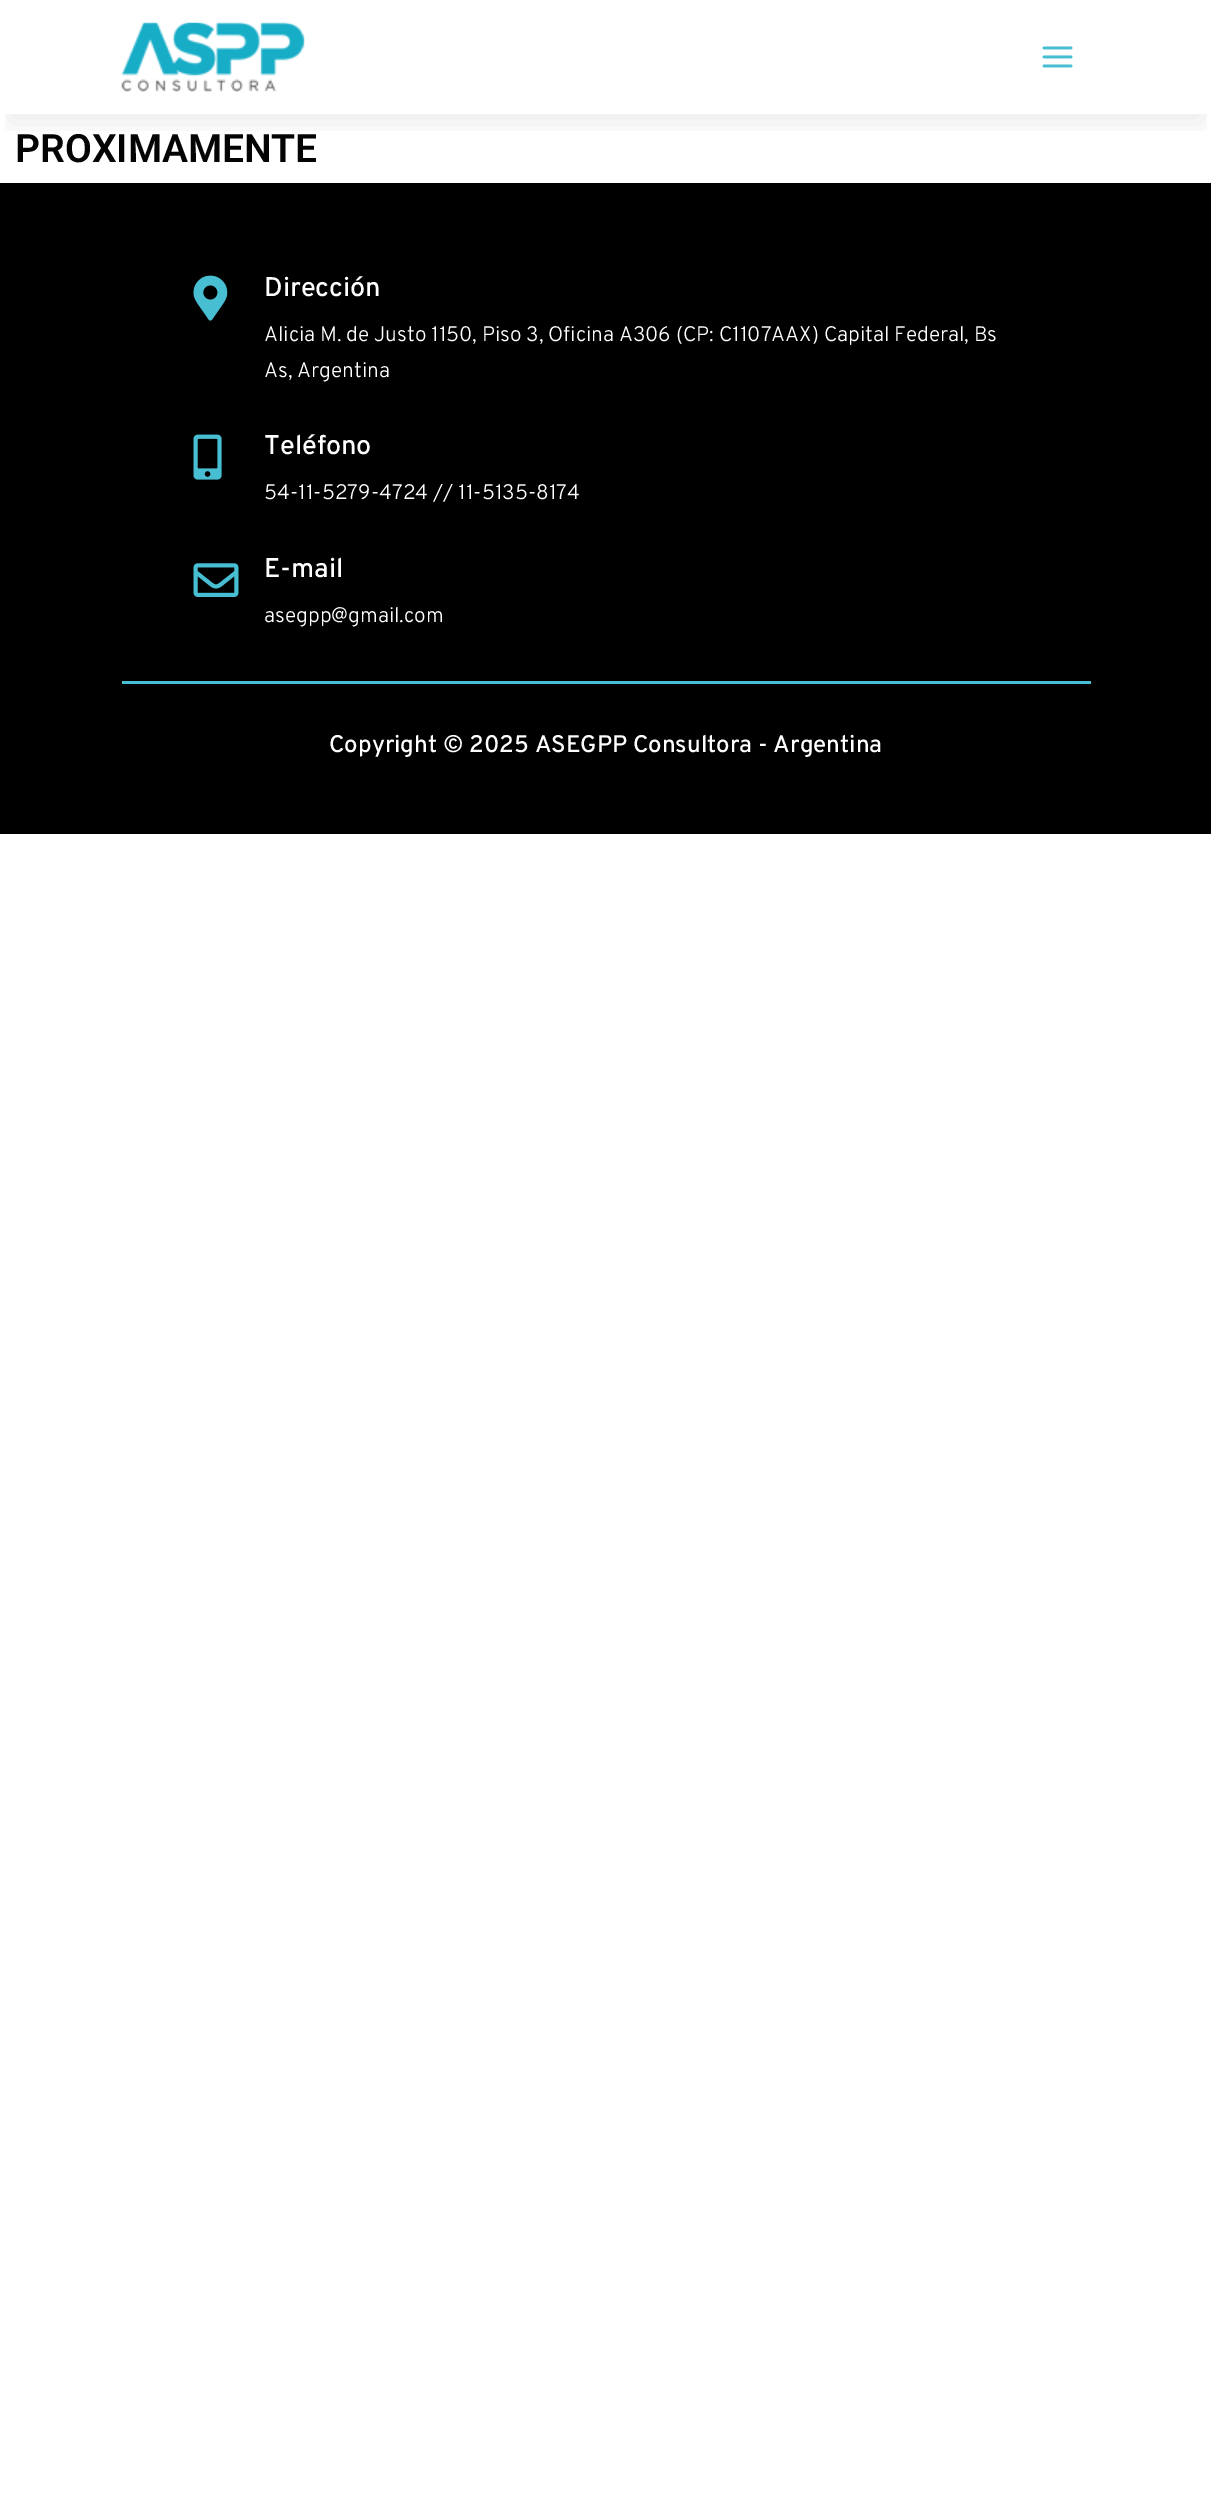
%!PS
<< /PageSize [1211 2498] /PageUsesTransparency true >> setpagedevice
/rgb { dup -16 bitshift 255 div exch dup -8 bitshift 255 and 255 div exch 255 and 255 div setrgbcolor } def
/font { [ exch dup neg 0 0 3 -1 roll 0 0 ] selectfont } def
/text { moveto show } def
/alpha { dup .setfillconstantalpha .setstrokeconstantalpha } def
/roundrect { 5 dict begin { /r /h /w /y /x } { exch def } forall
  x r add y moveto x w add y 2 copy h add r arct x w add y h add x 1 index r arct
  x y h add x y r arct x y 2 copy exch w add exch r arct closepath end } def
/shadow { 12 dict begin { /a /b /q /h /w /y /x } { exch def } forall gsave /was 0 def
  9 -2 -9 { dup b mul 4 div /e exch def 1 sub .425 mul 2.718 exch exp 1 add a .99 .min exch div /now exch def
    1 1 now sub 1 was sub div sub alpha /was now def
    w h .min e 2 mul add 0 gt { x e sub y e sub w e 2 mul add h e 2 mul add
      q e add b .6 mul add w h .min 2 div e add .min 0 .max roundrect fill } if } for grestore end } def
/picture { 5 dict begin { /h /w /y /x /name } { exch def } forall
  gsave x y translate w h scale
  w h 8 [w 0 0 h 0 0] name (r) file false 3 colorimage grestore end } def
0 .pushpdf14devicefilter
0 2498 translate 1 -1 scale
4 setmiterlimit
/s1 { /Roboto-SemiBold 39 font 16#050404 rgb } def
/s2 { /Overpass-Medium 27 font 16#FFFFFF rgb } def
/s3 { /Overpass-Light 21 font 16#FFFFFF rgb } def
/s4 { /Overpass-Medium 24 font 16#FFFFFF rgb } def
16#FFFFFF rgb
0 0 1211 2498 rectfill
gsave
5 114 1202 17 rectclip
16#000000 rgb
9 27 1194 96 0 13.5 0.07 shadow
grestore
(pic1.raw) 121 22 184 70 picture
(pic2.raw) 1042 46 31 22 picture
s1
(PROXIMAMENTE) 15 162 text
16#000000 rgb
0 183 1211 651 rectfill
16#48BED2 rgb
122 681 969 3 rectfill
(pic3.raw) 193 275 35 46 picture
s2
(Dirección) 264 296 text
s3
(Alicia M. de Justo 1150, Piso 3, Oficina A306 \(CP: C1107AAX\) Capital Federal, Bs) 264 341 text
(As, Argentina) 264 377 text
(pic4.raw) 193 434 29 46 picture
s2
(Teléfono) 264 454 text
s3
(54-11-5279-4724 // 11-5135-8174) 264 499 text
(pic5.raw) 193 563 46 34 picture
s2
(E-mail) 264 577 text
s3
(asegpp@gmail.com) 264 622 text
s4
(Copyright © 2025 ASEGPP Consultora - Argentina) 329 752 text
.poppdf14devicefilter showpage
